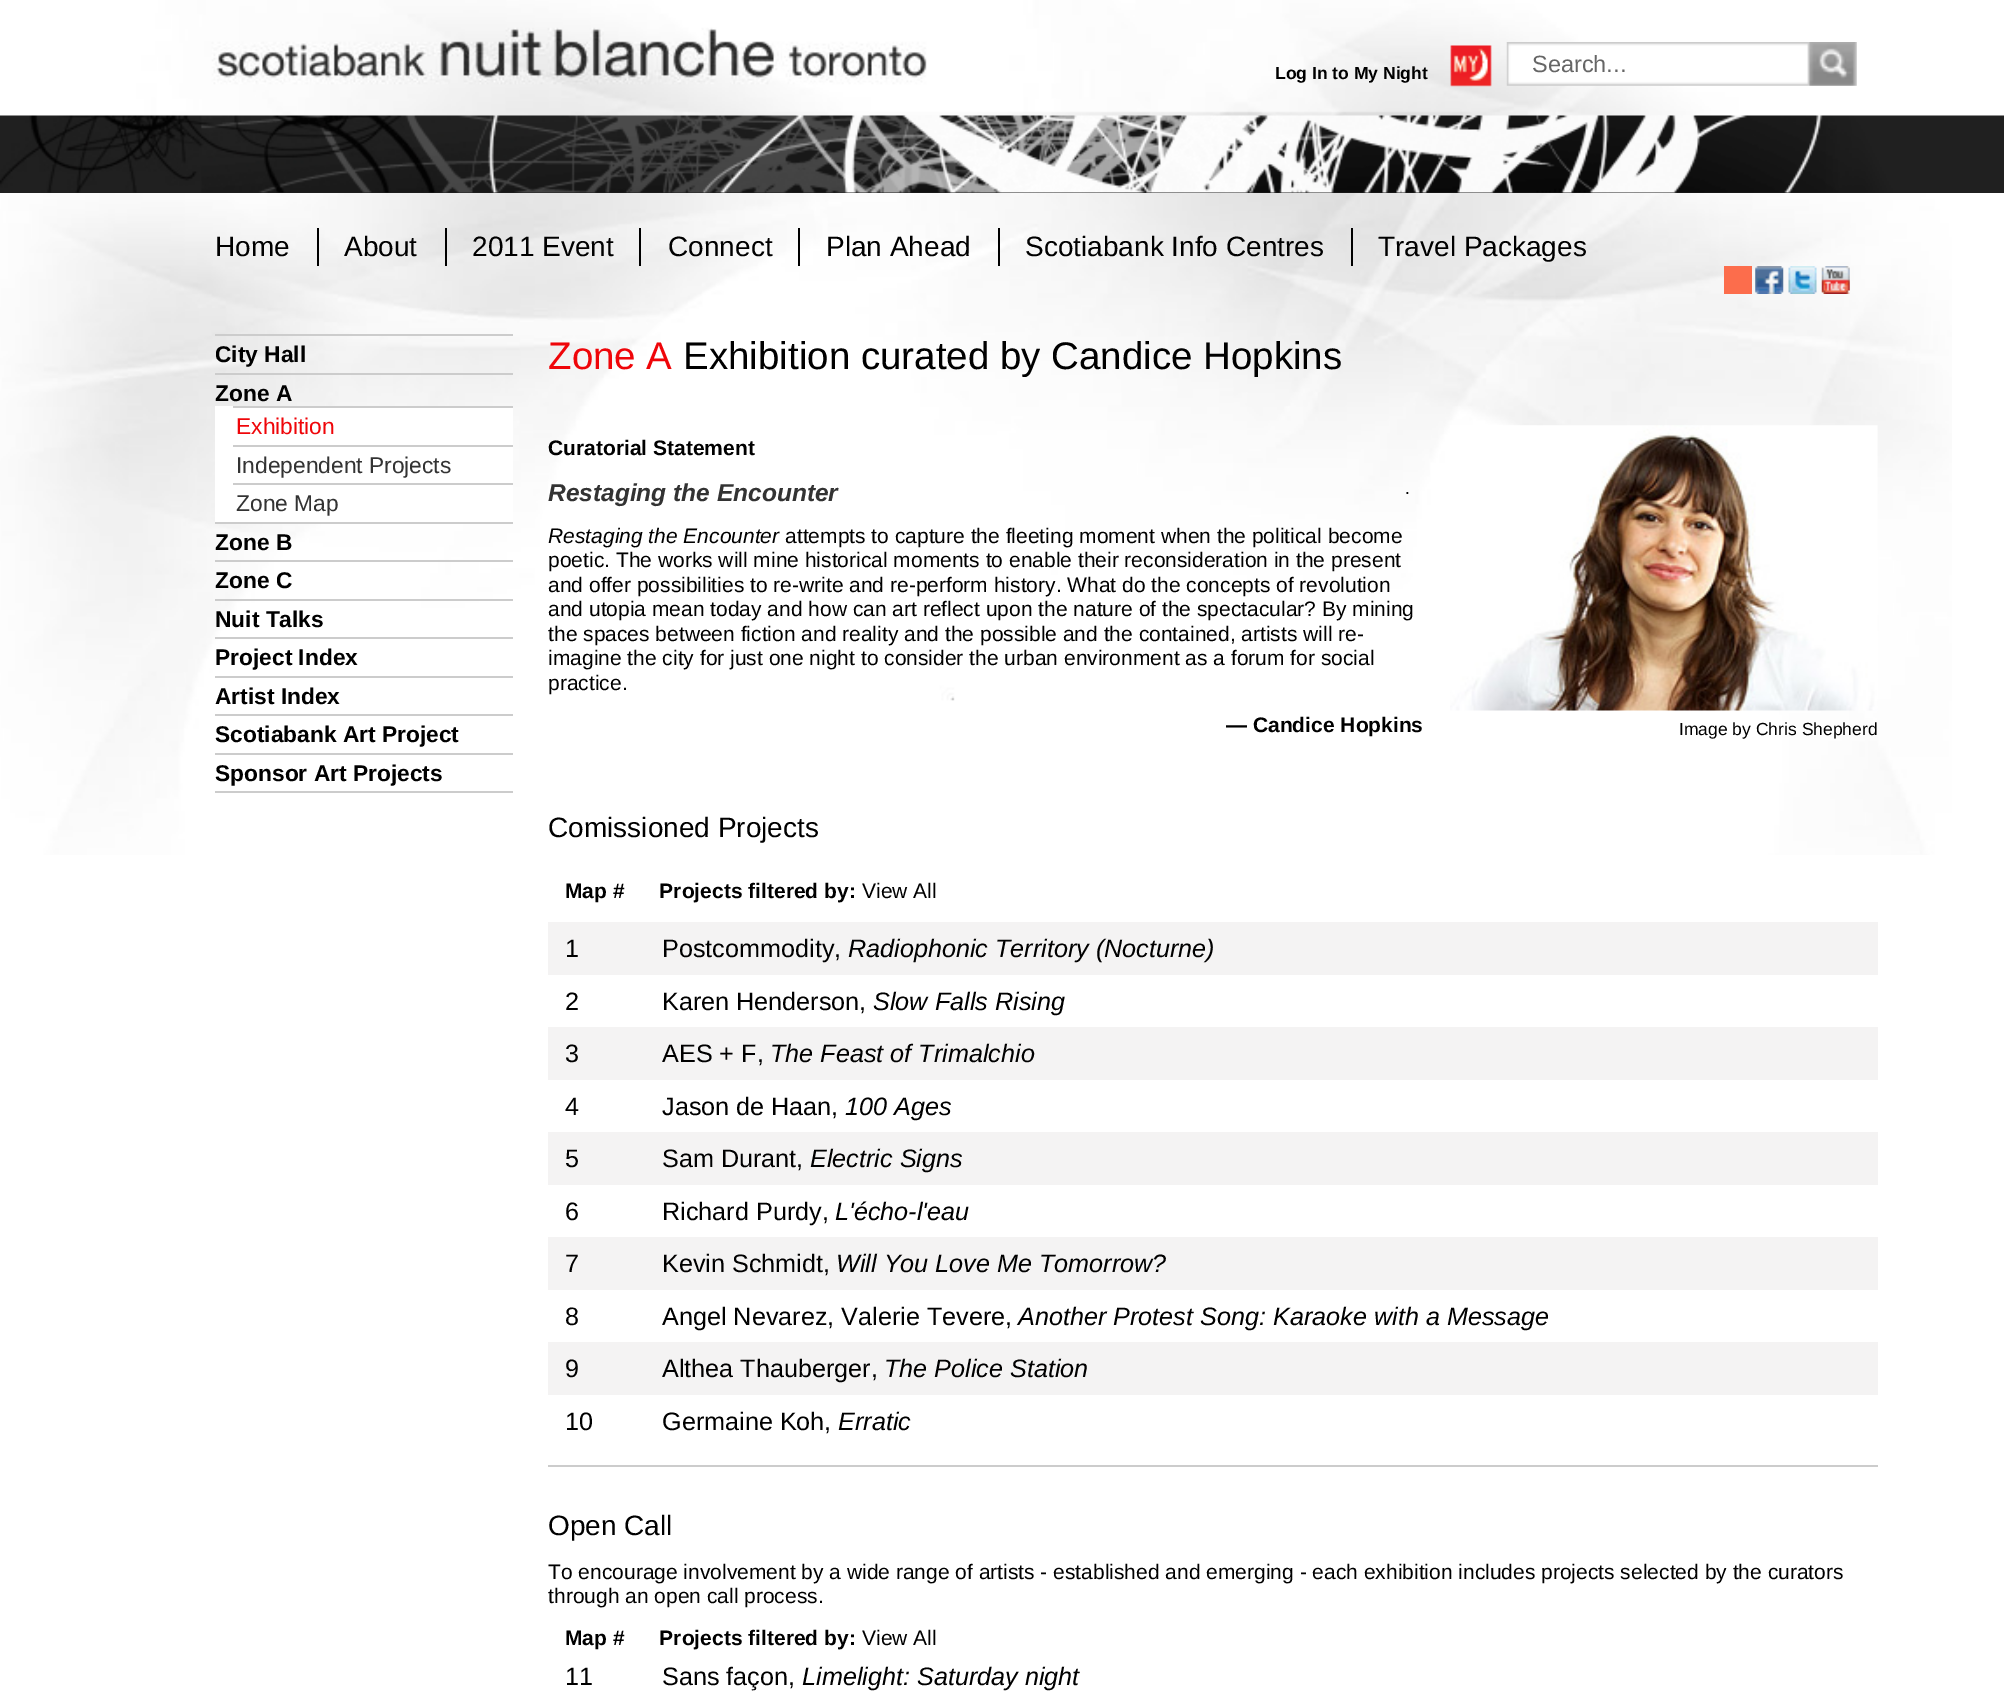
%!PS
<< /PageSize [2004 1703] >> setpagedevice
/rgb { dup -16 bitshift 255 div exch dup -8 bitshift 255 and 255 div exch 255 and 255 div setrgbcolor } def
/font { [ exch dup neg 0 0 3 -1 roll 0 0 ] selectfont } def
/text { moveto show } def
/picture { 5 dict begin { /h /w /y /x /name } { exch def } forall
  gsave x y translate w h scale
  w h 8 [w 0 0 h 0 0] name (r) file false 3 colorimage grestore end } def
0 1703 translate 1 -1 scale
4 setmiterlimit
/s1 { /LiberationSans-Bold 17.5 font 16#000000 rgb } def
/s2 { /LiberationSans-Regular 23.5 font 16#666666 rgb } def
/s3 { /LiberationSans-Regular 28 font 16#000000 rgb } def
/s4 { /LiberationSans-Bold 22.75 font 16#000000 rgb } def
/s5 { /LiberationSans-Regular 22.75 font 16#EF0509 rgb } def
/s6 { /LiberationSans-Regular 22.75 font 16#333333 rgb } def
/s7 { /LiberationSans-Regular 38.5 font 16#EF0509 rgb } def
/s8 { /LiberationSans-Regular 38.5 font 16#000000 rgb } def
/s9 { /LiberationSans-Bold 21 font 16#000000 rgb } def
/s10 { /LiberationSans-BoldItalic 24.5 font 16#333333 rgb } def
/s11 { /LiberationSans-Italic 21 font 16#000000 rgb } def
/s12 { /LiberationSans-Regular 21 font 16#000000 rgb } def
/s13 { /LiberationSans-Regular 17.5 font 16#000000 rgb } def
/s14 { /LiberationSans-Regular 25.2 font 16#000000 rgb } def
/s15 { /LiberationSans-Italic 25.2 font 16#000000 rgb } def
16#FFFFFF rgb
0 0 2004 1703 rectfill
(pic1.raw) 0 0 1952 855 picture
(pic2.raw) 1506 42 351 44 picture
(pic3.raw) 1450 45 42 42 picture
s1
(Log In to My Night) 1275 79 text
s2
(Search...) 1532 72 text
16#202020 rgb
0 192 2004 1 rectfill
(pic4.raw) 0 115 2004 78 picture
s3
(Home) 215 256 text
317 228 2 38 rectfill
(About) 344 256 text
445 228 2 38 rectfill
(2011 Event) 472 256 text
639 228 2 38 rectfill
(Connect) 668 256 text
798 228 2 38 rectfill
(Plan Ahead) 826 256 text
998 228 2 38 rectfill
(Scotiabank Info Centres) 1025 256 text
1351 228 2 38 rectfill
(Travel Packages) 1378 256 text
16#FC6D4C rgb
1724 266 28 28 rectfill
(pic5.raw) 1755 266 29 28 picture
(pic6.raw) 1788 266 29 28 picture
(pic7.raw) 1821 266 29 28 picture
16#CCCCCC rgb
215 791 298 2 rectfill
215 334 298 2 rectfill
s4
(City Hall) 215 362 text
16#CCCCCC rgb
215 373 298 2 rectfill
s4
(Zone A) 215 401 text
16#FFFFFF rgb
215 406 298 116 rectfill
16#CCCCCC rgb
233 406 280 2 rectfill
s5
(Exhibition) 236 434 text
16#CCCCCC rgb
233 445 280 2 rectfill
s6
(Independent Projects) 236 473 text
16#CCCCCC rgb
233 483 280 2 rectfill
s6
(Zone Map) 236 511 text
16#CCCCCC rgb
215 522 298 2 rectfill
s4
(Zone B) 215 550 text
16#CCCCCC rgb
215 560 298 2 rectfill
s4
(Zone C) 215 588 text
16#CCCCCC rgb
215 599 298 2 rectfill
s4
(Nuit Talks) 215 627 text
16#CCCCCC rgb
215 637 298 2 rectfill
s4
(Project Index) 215 665 text
16#CCCCCC rgb
215 676 298 2 rectfill
s4
(Artist Index) 215 704 text
16#CCCCCC rgb
215 714 298 2 rectfill
s4
(Scotiabank Art Project) 215 742 text
16#CCCCCC rgb
215 753 298 2 rectfill
s4
(Sponsor Art Projects) 215 781 text
s7
(Zone A) 548 369 text
s8
(Exhibition curated by Candice Hopkins) 683 369 text
s9
(Curatorial Statement) 548 455 text
s10
(Restaging the Encounter) 548 501 text
s11
(Restaging the Encounter) 548 543 text
s12
(attempts to capture the fleeting moment when the political become) 785 543 text
(poetic. The works will mine historical moments to enable their reconsideration in the present) 548 567 text
(and offer possibilities to re-write and re-perform history. What do the concepts of revolution) 548 592 text
(and utopia mean today and how can art reflect upon the nature of the spectacular? By mining) 548 616 text
(the spaces between fiction and reality and the possible and the contained, artists will re-) 548 641 text
(imagine the city for just one night to consider the urban environment as a forum for social) 548 665 text
(practice.) 548 690 text
s9
(— Candice Hopkins) 1226 732 text
s13
(.) 1405 494 text
(pic8.raw) 1450 425 428 286 picture
(Image by Chris Shepherd) 1679 735 text
s3
(Comissioned Projects) 548 837 text
s9
(Map #      Projects filtered by:) 565 898 text
s12
(View All) 862 898 text
16#F4F3F3 rgb
548 922 1330 53 rectfill
s14
(1) 565 957 text
(Postcommodity,) 662 957 text
s15
(Radiophonic Territory \(Nocturne\)) 848 957 text
s14
(2) 565 1010 text
(Karen Henderson,) 662 1010 text
s15
(Slow Falls Rising) 873 1010 text
16#F4F3F3 rgb
548 1027 1330 53 rectfill
s14
(3) 565 1062 text
(AES + F,) 662 1062 text
s15
(The Feast of Trimalchio) 770 1062 text
s14
(4) 565 1115 text
(Jason de Haan,) 662 1115 text
s15
(100 Ages) 845 1115 text
16#F4F3F3 rgb
548 1132 1330 53 rectfill
s14
(5) 565 1167 text
(Sam Durant,) 662 1167 text
s15
(Electric Signs) 810 1167 text
s14
(6) 565 1220 text
(Richard Purdy,) 662 1220 text
s15
(L'écho-l'eau) 835 1220 text
16#F4F3F3 rgb
548 1237 1330 53 rectfill
s14
(7) 565 1272 text
(Kevin Schmidt,) 662 1272 text
s15
(Will You Love Me Tomorrow?) 836 1272 text
s14
(8) 565 1325 text
(Angel Nevarez, Valerie Tevere,) 662 1325 text
s15
(Another Protest Song: Karaoke with a Message) 1018 1325 text
16#F4F3F3 rgb
548 1342 1330 53 rectfill
s14
(9) 565 1377 text
(Althea Thauberger,) 662 1377 text
s15
(The Police Station) 884 1377 text
s14
(10) 565 1430 text
(Germaine Koh,) 662 1430 text
s15
(Erratic) 838 1430 text
16#CCCCCC rgb
548 1465 1330 2 rectfill
s3
(Open Call) 548 1535 text
s12
(To encourage involvement by a wide range of artists - established and emerging - each exhibition includes projects selected by the curators) 548 1579 text
(through an open call process.) 548 1603 text
s9
(Map #      Projects filtered by:) 565 1645 text
s12
(View All) 862 1645 text
s14
(11) 565 1685 text
(Sans façon,) 662 1685 text
s15
(Limelight: Saturday night) 802 1685 text
showpage
